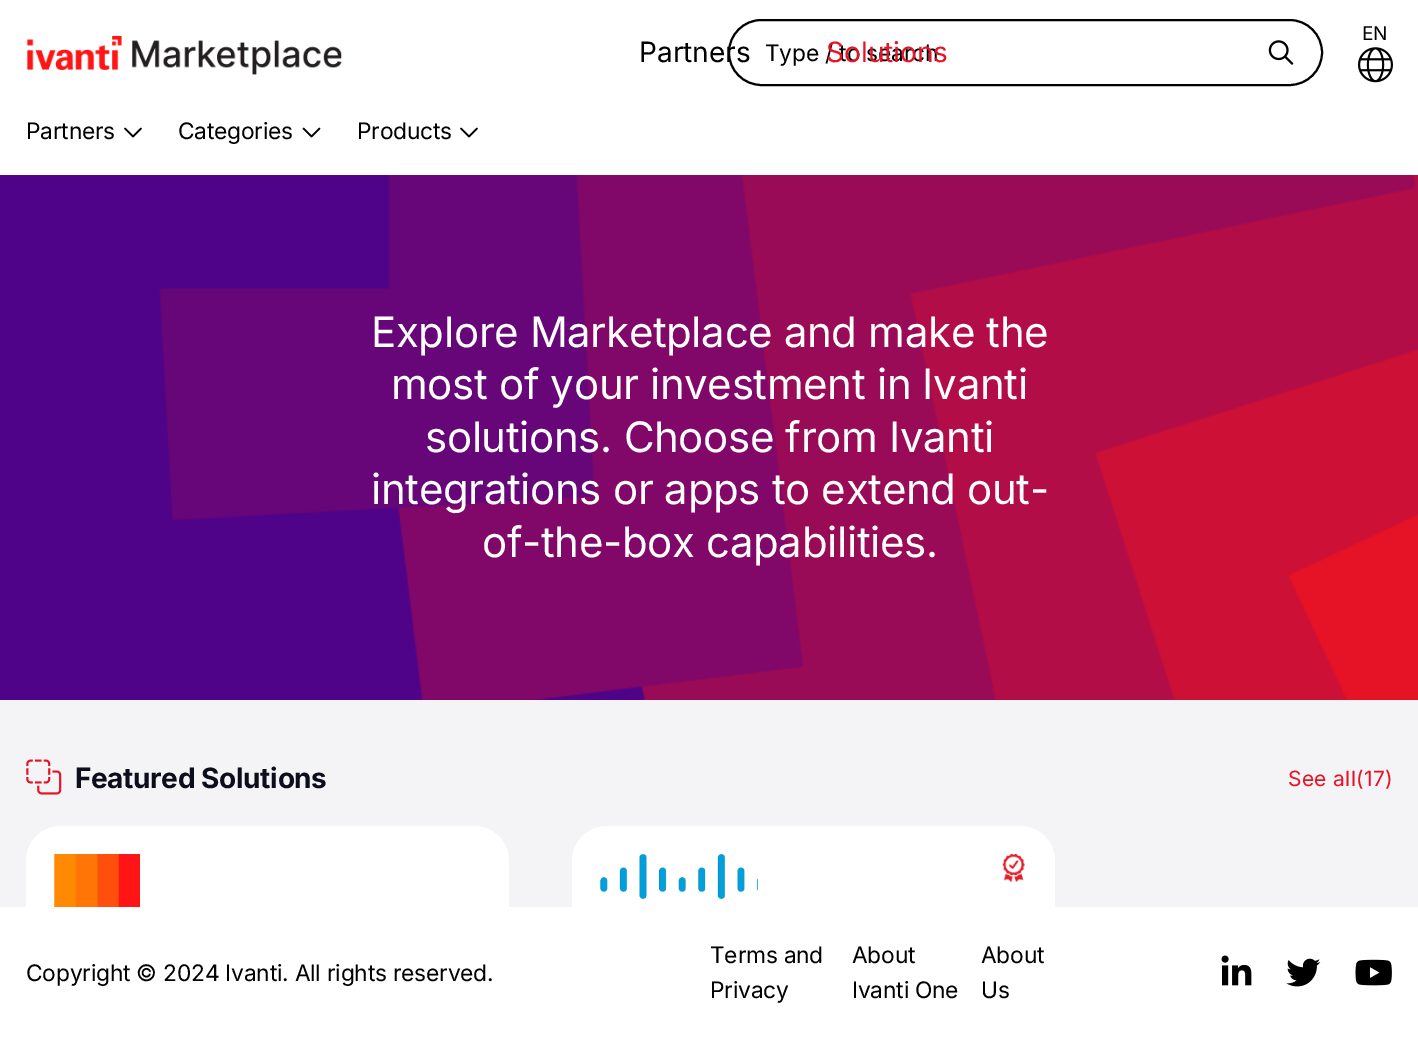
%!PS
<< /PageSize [1418 1037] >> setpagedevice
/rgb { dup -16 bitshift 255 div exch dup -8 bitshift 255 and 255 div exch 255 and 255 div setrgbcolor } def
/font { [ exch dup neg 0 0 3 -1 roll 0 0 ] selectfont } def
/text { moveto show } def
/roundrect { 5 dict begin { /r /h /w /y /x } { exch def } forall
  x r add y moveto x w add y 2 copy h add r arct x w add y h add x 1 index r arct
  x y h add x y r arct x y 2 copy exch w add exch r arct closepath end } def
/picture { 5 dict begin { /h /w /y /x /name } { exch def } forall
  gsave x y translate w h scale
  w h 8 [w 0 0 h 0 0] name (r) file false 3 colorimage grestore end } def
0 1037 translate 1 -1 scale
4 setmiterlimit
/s1 { /Inter-Regular 19 font 16#000000 rgb } def
/s2 { /Inter-Regular 28 font 16#000000 rgb } def
/s3 { /Inter-Regular 28 font 16#E71326 rgb } def
16#F4F4F6 rgb
0 0 1418 1037 rectfill
16#FFFFFF rgb
0 0 1418 175 rectfill
s1
(EN) 1362 40 text
(pic1.raw) 1358 47 35 36 picture
2 setlinewidth
729 20 593 65 32.5 roundrect stroke
/Inter-Regular 22.75 font
765 61 moveto -0.2 0 (Type / to search) ashow
(pic2.raw) 1268 40 26 25 picture
(pic3.raw) 27 35 315 40 picture
s2
(Partners) 639 62 text
s3
(Solutions) 826 62 text
/Inter-Regular 22.75 font
16#000000 rgb
26 139 moveto -0.2 0 (Partners) ashow
(pic4.raw) 124 127 18 11 picture
178 139 moveto -0.2 0 (Categories) ashow
(pic5.raw) 302 127 19 11 picture
357 139 moveto -0.2 0 (Products) ashow
(pic4.raw) 460 127 18 11 picture
(pic6.raw) 0 175 1418 525 picture
/Inter-Regular 42 font
16#FFFFFF rgb
371 347 moveto -0.35 0 (Explore Marketplace and make the) ashow
391 399 moveto -0.35 0 (most of your investment in Ivanti) ashow
425 452 moveto -0.35 0 (solutions. Choose from Ivanti) ashow
371 504 moveto -0.35 0 (integrations or apps to extend out-) ashow
482 557 moveto -0.35 0 (of-the-box capabilities.) ashow
(pic7.raw) 26 759 36 36 picture
/Inter-Bold 28 font
16#0D0E1B rgb
75 788 moveto -0.35 0 (Featured Solutions) ashow
/Inter-Regular 21 font
16#E71326 rgb
1288 786 moveto 0.3 0 (See all\(17\)) ashow
16#FFFFFF rgb
61 826 moveto 474 826 lineto 493.5 826 509 841.5 509 861 curveto 509 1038 lineto 26 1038 lineto 26 861 lineto 26 841.5 41.5 826 61 826 curveto closepath fill
(pic8.raw) 54 854 86 53 picture
607 826 moveto 1020 826 lineto 1039.5 826 1055 841.5 1055 861 curveto 1055 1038 lineto 572 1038 lineto 572 861 lineto 572 841.5 587.5 826 607 826 curveto closepath fill
(pic9.raw) 600 854 158 53 picture
(pic10.raw) 1002 854 23 28 picture
0 907 1418 130 rectfill
/Inter-Regular 22.75 font
16#000000 rgb
26 981 moveto -0.2 0 (Copyright © 2024 Ivanti. All rights reserved.) ashow
710 963 moveto -0.2 0 (Terms and) ashow
710 998 moveto -0.2 0 (Privacy) ashow
852 963 moveto -0.2 0 (About) ashow
852 998 moveto -0.2 0 (Ivanti One) ashow
981 963 moveto -0.2 0 (About) ashow
981 998 moveto -0.2 0 (Us) ashow
(pic11.raw) 1221 955 31 31 picture
(pic12.raw) 1286 958 35 29 picture
(pic13.raw) 1355 959 37 27 picture
showpage
